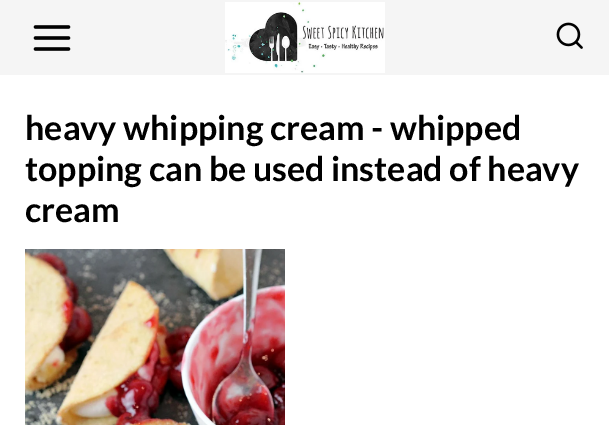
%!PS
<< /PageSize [609 425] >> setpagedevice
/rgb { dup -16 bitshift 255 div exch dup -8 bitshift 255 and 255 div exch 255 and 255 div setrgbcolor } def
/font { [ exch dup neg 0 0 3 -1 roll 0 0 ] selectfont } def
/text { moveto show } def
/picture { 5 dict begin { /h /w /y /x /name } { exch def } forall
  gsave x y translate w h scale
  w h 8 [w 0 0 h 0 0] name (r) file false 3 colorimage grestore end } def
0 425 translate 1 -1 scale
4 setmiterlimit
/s1 { /Lato-Bold 34 font 16#000000 rgb } def
16#FFFFFF rgb
0 0 609 425 rectfill
16#F5F5F5 rgb
0 0 609 75 rectfill
(pic1.raw) 33 25 38 26 picture
(pic2.raw) 225 2 160 71 picture
(pic3.raw) 556 22 27 27 picture
s1
(heavy whipping cream - whipped) 25 140 text
(topping can be used instead of heavy) 25 181 text
(cream) 25 222 text
(pic4.raw) 25 249 260 176 picture
showpage
